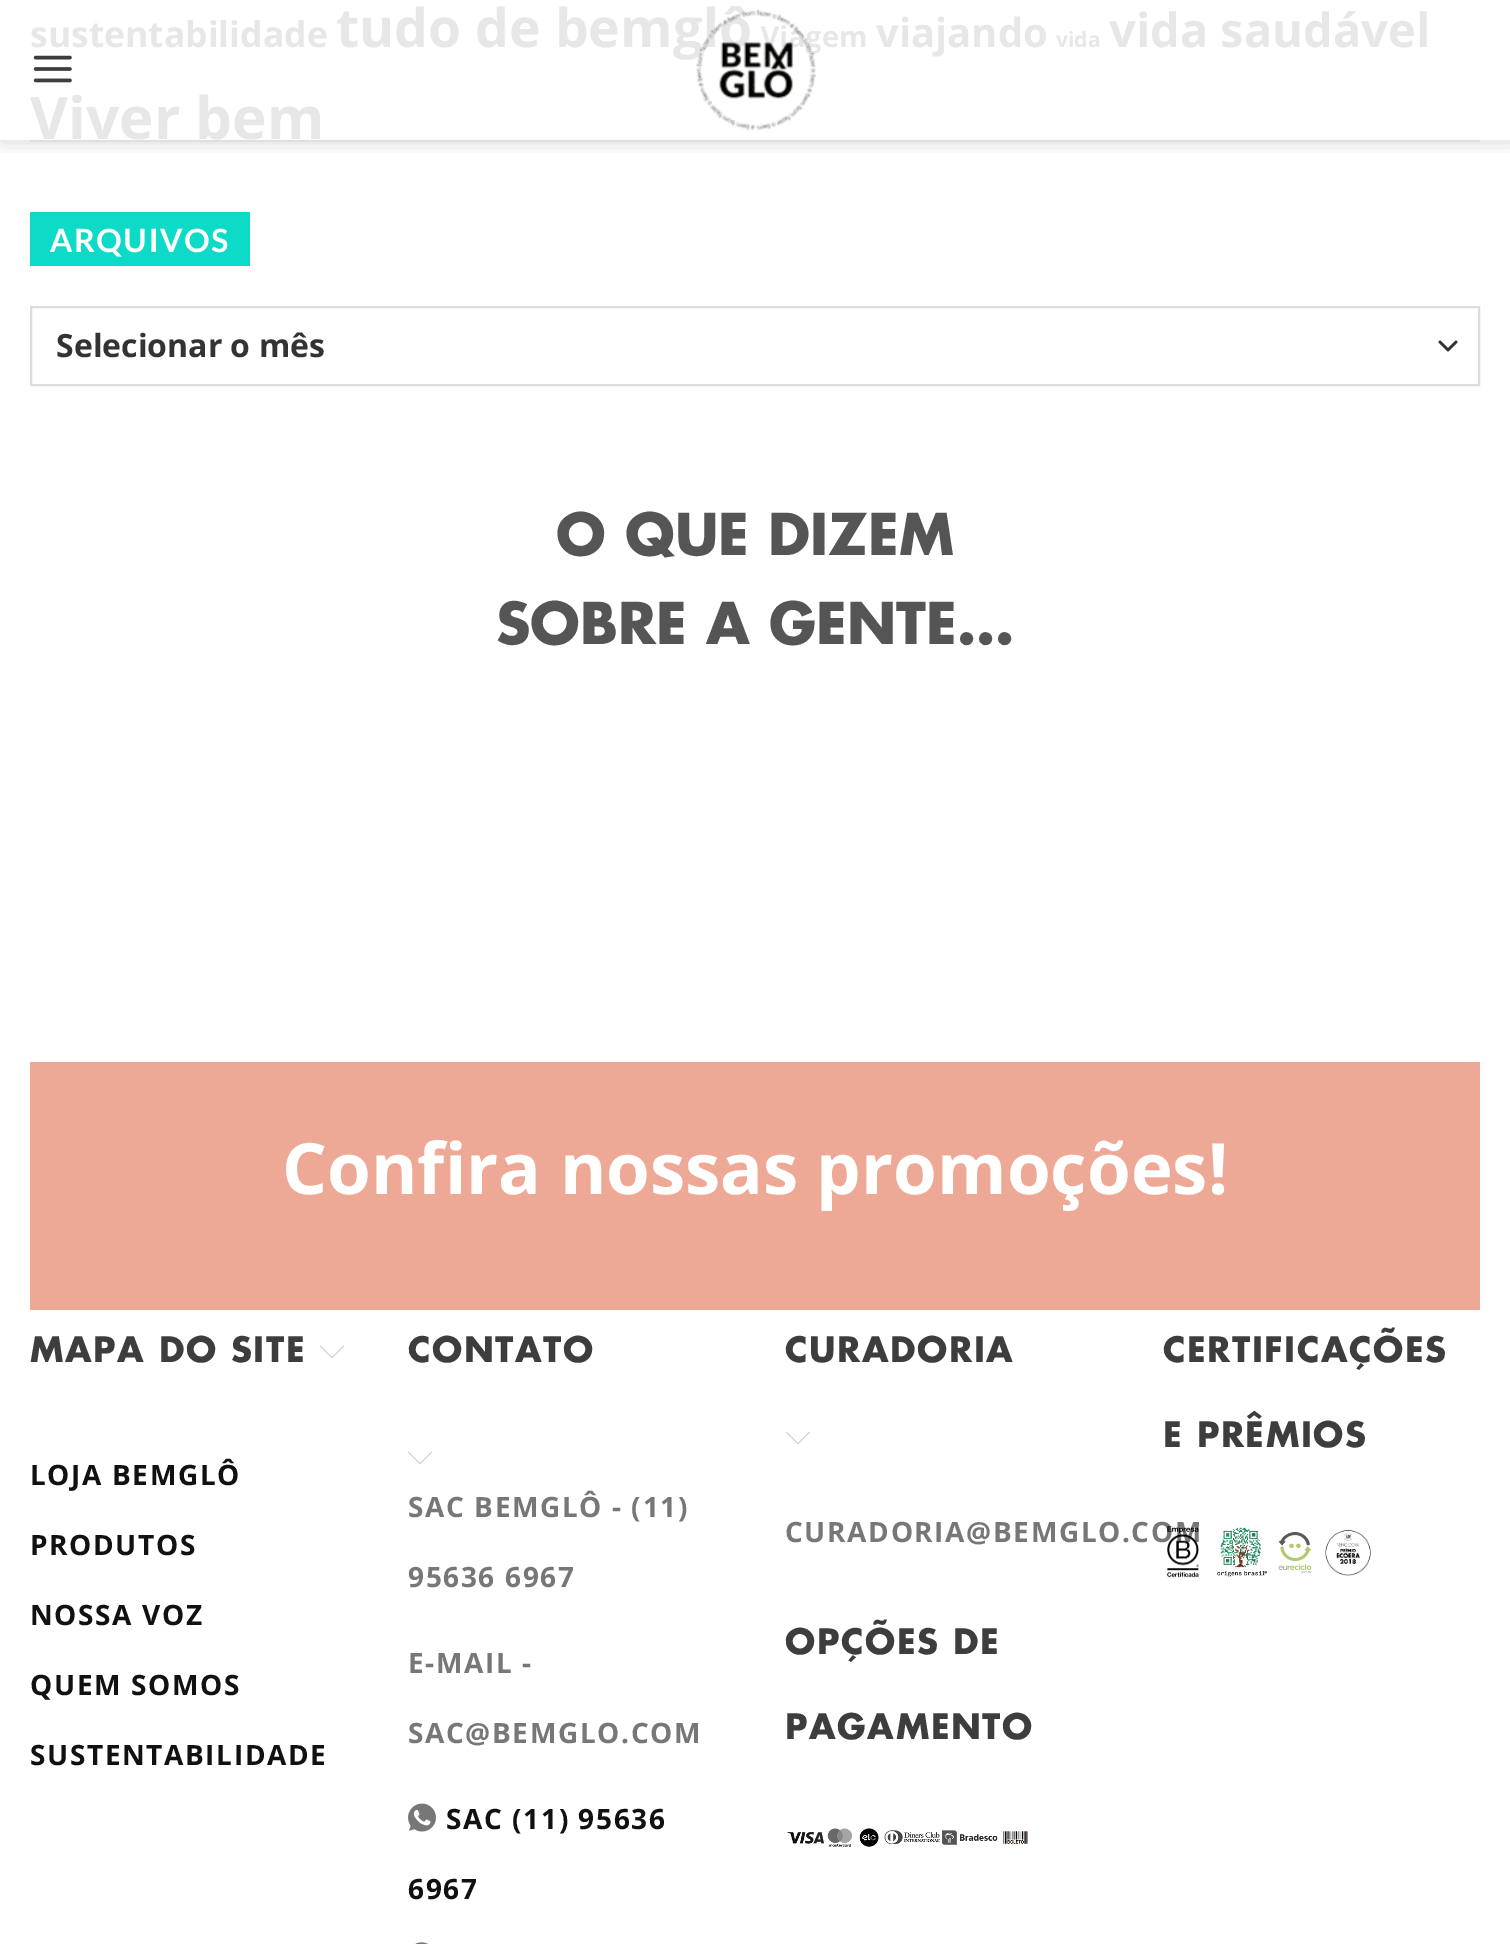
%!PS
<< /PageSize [1510 1944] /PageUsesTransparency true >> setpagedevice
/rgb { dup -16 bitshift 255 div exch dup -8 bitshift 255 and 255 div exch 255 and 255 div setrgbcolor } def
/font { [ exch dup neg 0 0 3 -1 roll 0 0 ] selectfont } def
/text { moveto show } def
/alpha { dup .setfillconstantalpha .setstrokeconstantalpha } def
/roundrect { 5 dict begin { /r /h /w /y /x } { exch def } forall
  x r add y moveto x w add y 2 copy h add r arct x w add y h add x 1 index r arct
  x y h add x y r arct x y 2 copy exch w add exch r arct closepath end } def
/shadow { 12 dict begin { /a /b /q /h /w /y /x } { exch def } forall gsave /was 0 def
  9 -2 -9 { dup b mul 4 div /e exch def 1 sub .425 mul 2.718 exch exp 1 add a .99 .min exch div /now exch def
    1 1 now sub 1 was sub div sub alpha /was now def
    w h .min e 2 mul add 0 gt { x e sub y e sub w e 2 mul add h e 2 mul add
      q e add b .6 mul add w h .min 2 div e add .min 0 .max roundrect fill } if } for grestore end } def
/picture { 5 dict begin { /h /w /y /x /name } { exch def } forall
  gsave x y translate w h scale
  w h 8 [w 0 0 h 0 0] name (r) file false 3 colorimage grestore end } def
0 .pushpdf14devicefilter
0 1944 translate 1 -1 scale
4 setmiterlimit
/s1 { /OpenSans-Bold 53.5 font 16#E7E7E7 rgb } def
/s2 { /OpenSans-Bold 29 font 16#E7E7E7 rgb } def
/s3 { /OpenSans-Bold 35.5 font 16#E7E7E7 rgb } def
/s4 { /OpenSans-Bold 40 font 16#E7E7E7 rgb } def
/s5 { /OpenSans-Bold 21 font 16#E7E7E7 rgb } def
/s6 { /OpenSans-Bold 47 font 16#E7E7E7 rgb } def
/s7 { /OpenSans-Bold 58.5 font 16#E7E7E7 rgb } def
/s8 { /OpenSans-Bold 32 font 16#333333 rgb } def
/s9 { /Futura-Bold 56 font 16#555555 rgb } def
/s10 { /OpenSans-Bold 70.75 font 16#FFFFFF rgb } def
16#FFFFFF rgb
0 0 1510 1944 rectfill
gsave
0 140 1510 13 rectclip
16#000000 rgb
2 2 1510 140 0 10 0.15 shadow
grestore
(pic1.raw) 33 55 39 28 picture
s1
(tudo de bemglô) 336 47 text
s2
(Viagem) 760 47 text
(pic2.raw) 695 9 121 122 picture
16#DFDFDF rgb
30 140 1450 2 rectfill
s3
(sustentabilidade) 30 47 text
s4
(viajando) 876 47 text
s5
(vida) 1056 47 text
s6
(vida saudável) 1109 47 text
s7
(Viver bem) 30 139 text
16#0EDBC7 rgb
30 212 220 54 rectfill
/Lato-Bold 32 font
16#FFFFFF rgb
50 252 moveto 1.6 0 (ARQUIVOS) ashow
16#333333 rgb
2.7 setlinewidth
1 setlinecap
1 setlinejoin
1440 342 moveto 1448 350 lineto 1456 342 lineto stroke
16#DDDDDD rgb
2 setlinewidth
0 setlinecap
0 setlinejoin
31 307 1448 78 rectstroke
s8
(Selecionar o mês) 56 357 text
s9
(O QUE DIZEM) 556 555 text
(SOBRE A GENTE...) 496 644 text
16#EEA996 rgb
30 1062 1450 248 rectfill
s10
(Confira nossas promoções!) 282 1194 text
/Futura-Bold 34 font
16#3D3D3D rgb
30 1362 moveto 1.6 0 (MAPA DO SITE) ashow
(pic3.raw) 320 1345 24 14 picture
/OpenSans-Bold 28 font
16#111111 rgb
30 1485 moveto 1.6 0 (LOJA BEMGLÔ) ashow
30 1555 moveto 1.6 0 (PRODUTOS) ashow
30 1625 moveto 1.6 0 (NOSSA VOZ) ashow
30 1695 moveto 1.6 0 (QUEM SOMOS) ashow
30 1765 moveto 1.6 0 (SUSTENTABILIDADE) ashow
/Futura-Bold 34 font
16#3D3D3D rgb
408 1362 moveto 1.6 0 (CONTATO) ashow
(pic3.raw) 408 1451 24 14 picture
/OpenSans-Bold 28 font
16#777777 rgb
408 1517 moveto 1.6 0 (SAC BEMGLÔ - \(11\)) ashow
408 1587 moveto 1.6 0 (95636 6967) ashow
408 1673 moveto 1.6 0 (E-MAIL -) ashow
408 1743 moveto 1.6 0 (SAC@BEMGLO.COM) ashow
(pic4.raw) 408 1803 28 29 picture
16#111111 rgb
446 1829 moveto 1.6 0 (SAC \(11\) 95636) ashow
408 1899 moveto 1.6 0 (6967) ashow
(pic5.raw) 415 1942 13 2 picture
/Futura-Bold 34 font
16#3D3D3D rgb
785 1362 moveto 1.6 0 (CURADORIA) ashow
(pic3.raw) 786 1431 24 14 picture
/OpenSans-Bold 28 font
16#777777 rgb
785 1542 moveto 1.6 0 (CURADORIA@BEMGLO.COM) ashow
/Futura-Bold 34 font
16#3D3D3D rgb
785 1654 moveto 1.6 0 (OPÇÕES DE) ashow
785 1739 moveto 1.6 0 (PAGAMENTO) ashow
(pic6.raw) 787 1828 241 19 picture
1163 1362 moveto 1.6 0 (CERTIFICAÇÕES) ashow
1163 1447 moveto 1.6 0 (E PRÊMIOS) ashow
(pic7.raw) 1167 1526 32 52 picture
(pic8.raw) 1217 1527 50 50 picture
(pic9.raw) 1278 1532 34 42 picture
(pic10.raw) 1325 1530 46 46 picture
.poppdf14devicefilter showpage
